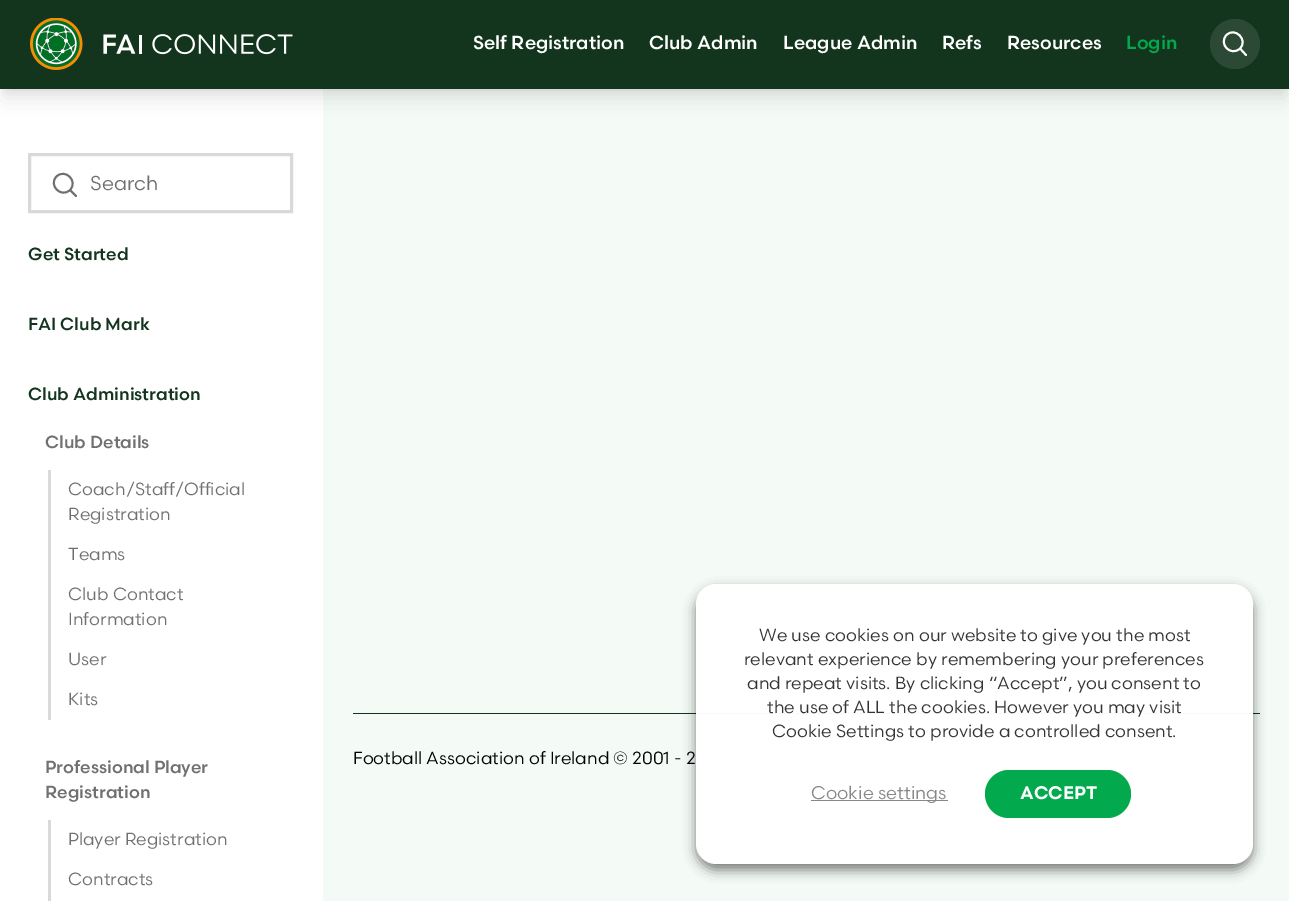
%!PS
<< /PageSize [1289 901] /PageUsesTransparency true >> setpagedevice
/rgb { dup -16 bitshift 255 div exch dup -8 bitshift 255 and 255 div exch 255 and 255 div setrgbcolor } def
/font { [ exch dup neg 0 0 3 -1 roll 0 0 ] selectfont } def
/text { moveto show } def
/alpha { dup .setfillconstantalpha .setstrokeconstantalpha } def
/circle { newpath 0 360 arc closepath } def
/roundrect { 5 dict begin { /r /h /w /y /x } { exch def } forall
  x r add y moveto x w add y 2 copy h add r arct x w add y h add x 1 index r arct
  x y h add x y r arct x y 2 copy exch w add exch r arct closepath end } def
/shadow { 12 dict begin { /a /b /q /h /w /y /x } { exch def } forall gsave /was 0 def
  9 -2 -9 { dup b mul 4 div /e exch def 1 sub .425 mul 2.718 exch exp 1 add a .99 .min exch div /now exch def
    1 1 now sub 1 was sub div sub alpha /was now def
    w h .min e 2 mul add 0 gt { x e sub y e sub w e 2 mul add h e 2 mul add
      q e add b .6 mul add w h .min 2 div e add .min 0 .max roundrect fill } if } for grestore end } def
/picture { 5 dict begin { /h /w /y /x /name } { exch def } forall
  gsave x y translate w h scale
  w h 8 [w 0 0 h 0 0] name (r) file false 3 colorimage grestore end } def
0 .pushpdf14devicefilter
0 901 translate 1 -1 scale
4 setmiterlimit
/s1 { /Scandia-Medium 18.75 font 16#FFFFFF rgb } def
/s2 { /Scandia-Medium 18.75 font 16#02A94D rgb } def
/s3 { /Scandia-Regular 20 font 16#707070 rgb } def
/s4 { /Scandia-Medium 17.5 font 16#13351E rgb } def
/s5 { /Scandia-Medium 17.5 font 16#707070 rgb } def
/s6 { /Scandia-Regular 17.5 font 16#707070 rgb } def
/s7 { /Scandia-Regular 17.5 font 16#000000 rgb } def
/s8 { /Scandia-Regular 17.5 font 16#333333 rgb } def
/s9 { /Scandia-Regular 18.25 font 16#898888 rgb } def
16#F4FAF5 rgb
0 0 1289 901 rectfill
16#FFFFFF rgb
0 89 323 812 rectfill
16#000000 rgb
5 10 1280 79 0 4 0.1 shadow
4 16 1282 82 0 9.5 0.1 shadow
16#13351E rgb
0 0 1289 89 rectfill
(pic1.raw) 30 18 263 52 picture
s1
(Self Registration) 473 49 text
(Club Admin) 649 49 text
(League Admin) 783 49 text
(Refs) 942 49 text
(Resources) 1007 49 text
s2
(Login) 1126 49 text
16#2B4935 rgb
1235 44 25 circle fill
16#FFFFFF rgb
1.9 setlinewidth
1 setlinecap
1 setlinejoin
1246 55 moveto 1240 48.5 lineto 1240 48.5 moveto 1248.5 40 1235 26.5 1226.5 35 curveto 1218 44 1231 57 1240 48.5 curveto closepath stroke
16#D9D9D9 rgb
3 setlinewidth
0 setlinecap
0 setlinejoin
29.5 154.5 262 57 rectstroke
16#707070 rgb
1.9 setlinewidth
1 setlinecap
1 setlinejoin
76 196 moveto 70 190 lineto 70 190 moveto 78.5 181 65 168 56.5 176.5 curveto 48 185 61 198.5 70 190 curveto closepath stroke
s3
(Search) 90 190 text
s4
(Get Started) 28 260 text
(FAI Club Mark) 28 330 text
(Club Administration) 28 400 text
s5
(Club Details) 45 448 text
16#D9D9D9 rgb
48 470 3 250 rectfill
s6
(Coach/Staff/Official) 68 495 text
(Registration) 68 520 text
(Teams) 68 560 text
(Club Contact) 68 600 text
(Information) 68 625 text
(User) 68 665 text
(Kits) 68 705 text
s5
(Professional Player) 45 773 text
(Registration) 45 798 text
16#D9D9D9 rgb
48 820 3 81 rectfill
s6
(Player Registration) 68 845 text
(Contracts) 68 885 text
16#13351E rgb
353 713 907 1 rectfill
s7
(Football Association of Ireland © 2001 - 2) 353 764 text
gsave
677 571 moveto 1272 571 lineto 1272 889 lineto 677 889 lineto closepath 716 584 moveto 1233 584 lineto 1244 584 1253 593 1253 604 curveto 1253 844 lineto 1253 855 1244 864 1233 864 curveto 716 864 lineto 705 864 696 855 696 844 curveto 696 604 lineto 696 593 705 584 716 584 curveto closepath eoclip newpath
696 590 557 280 20 6 0.5 shadow
grestore
0.97 alpha
16#FFFFFF rgb
696 584 557 280 20 roundrect fill
1 alpha
s8
(We use cookies on our website to give you the most) 759 641 text
(relevant experience by remembering your preferences) 744 665 text
(and repeat visits. By clicking “Accept”, you consent to) 747 689 text
(the use of ALL the cookies. However you may visit) 767 713 text
(Cookie Settings to provide a controlled consent.) 772 737 text
16#898888 rgb
811 800 137 1 rectfill
s9
(Cookie settings) 811 799 text
16#02A94D rgb
985 770 146 48 24 roundrect fill
/Scandia-Bold 17.5 font
16#FFFFFF rgb
1020 799 moveto 0.5 0 (ACCEPT) ashow
.poppdf14devicefilter showpage
